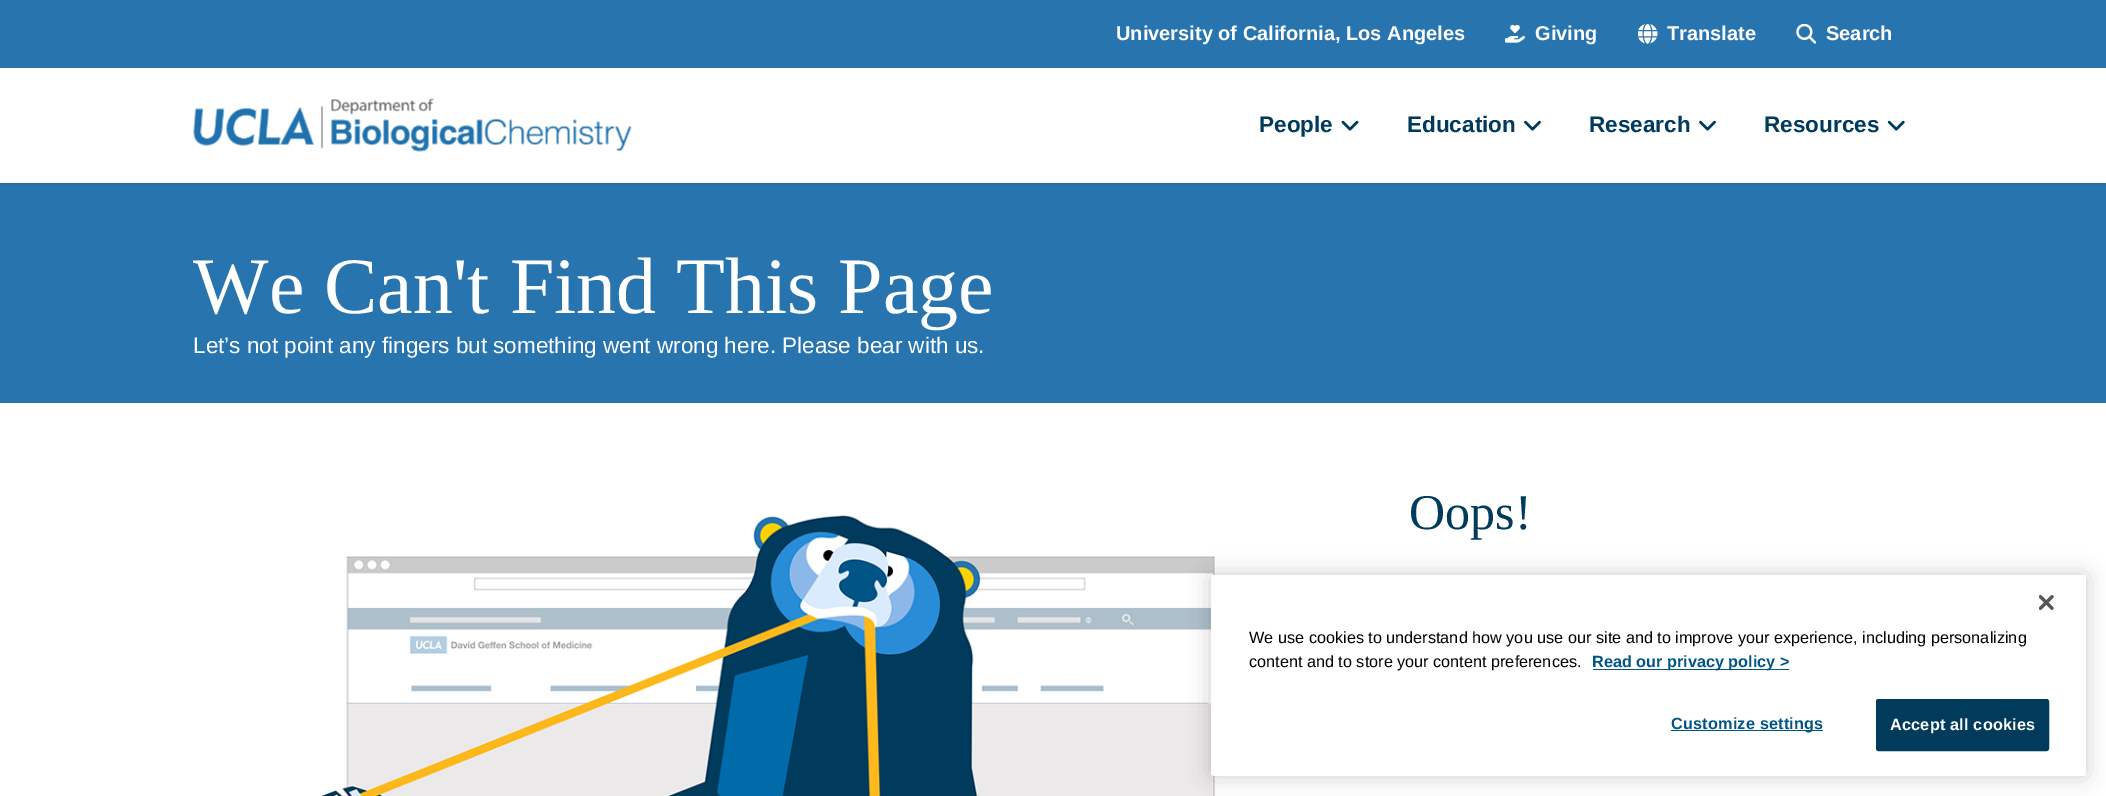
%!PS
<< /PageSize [2106 796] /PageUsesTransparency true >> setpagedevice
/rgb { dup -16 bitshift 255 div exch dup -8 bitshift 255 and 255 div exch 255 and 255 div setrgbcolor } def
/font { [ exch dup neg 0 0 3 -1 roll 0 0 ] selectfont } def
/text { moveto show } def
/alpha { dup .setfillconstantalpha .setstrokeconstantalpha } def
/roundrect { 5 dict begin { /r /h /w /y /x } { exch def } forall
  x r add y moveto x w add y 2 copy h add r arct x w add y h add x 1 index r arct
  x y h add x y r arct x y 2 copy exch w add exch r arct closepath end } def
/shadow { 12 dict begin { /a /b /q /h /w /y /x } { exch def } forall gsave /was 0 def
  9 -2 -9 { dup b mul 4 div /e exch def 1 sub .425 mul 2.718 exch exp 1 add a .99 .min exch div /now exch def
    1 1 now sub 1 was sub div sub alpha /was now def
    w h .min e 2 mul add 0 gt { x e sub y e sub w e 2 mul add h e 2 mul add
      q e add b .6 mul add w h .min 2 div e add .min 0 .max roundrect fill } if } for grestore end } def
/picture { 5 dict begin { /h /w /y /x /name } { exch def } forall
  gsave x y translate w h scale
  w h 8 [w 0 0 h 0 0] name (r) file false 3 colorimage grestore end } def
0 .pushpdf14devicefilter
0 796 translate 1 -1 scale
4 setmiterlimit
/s1 { /LiberationSans-Bold 20 font 16#FFFFFF rgb } def
/s2 { /LiberationSans-Bold 22.5 font 16#003A5C rgb } def
/s3 { /LiberationSerif-Regular 80 font 16#FFFFFF rgb } def
/s4 { /LiberationSans-Regular 22.5 font 16#FFFFFF rgb } def
/s5 { /LiberationSerif-Regular 50 font 16#003A5C rgb } def
/s6 { /LiberationSans-Regular 16.25 font 16#000000 rgb } def
/s7 { /LiberationSans-Bold 16.25 font 16#005587 rgb } def
16#FFFFFF rgb
0 0 2106 796 rectfill
16#2874AF rgb
0 183 2106 220 rectfill
16#000000 rgb
1 3 2104 180 0 1 0.1 shadow
0 1 2106 183 0 2 0.1 shadow
16#FFFFFF rgb
0 68 2106 115 rectfill
16#2874AF rgb
0 0 2106 68 rectfill
s1
(University of California, Los Angeles) 1116 40 text
(pic1.raw) 1505 24 20 19 picture
(Giving) 1535 40 text
(pic2.raw) 1638 24 20 20 picture
(Translate) 1667 40 text
(pic3.raw) 1796 24 20 20 picture
(Search) 1826 40 text
(pic4.raw) 193 98 439 54 picture
s2
(People) 1259 132 text
(pic5.raw) 1341 120 18 11 picture
(Education) 1407 132 text
(pic6.raw) 1524 120 17 11 picture
(Research) 1589 132 text
(pic6.raw) 1699 120 17 11 picture
(Resources) 1764 132 text
(pic7.raw) 1887 120 18 11 picture
s3
(We Can't Find This Page) 193 313 text
s4
(Let’s not point any fingers but something went wrong here. Please bear with us.) 193 353 text
(pic8.raw) 321 515 894 281 picture
s5
(Oops!) 1409 529 text
16#000000 rgb
1211 575 875 201 3 11 0.2 shadow
16#FFFFFF rgb
1211 575 875 201 3 roundrect fill
(pic9.raw) 2039 595 15 15 picture
s6
(We use cookies to understand how you use our site and to improve your experience, including personalizing) 1249 643 text
(content and to store your content preferences.) 1249 667 text
16#005587 rgb
1593 669 196 1 rectfill
s7
(Read our privacy policy >) 1592 667 text
1671 730 152 1 rectfill
1671 729 moveto 0.2 0 (Customize settings) ashow
16#003B5C rgb
1876.5 699.5 172 51 2 roundrect gsave fill grestore
stroke
16#FFFFFF rgb
1890 730 moveto 0.2 0 (Accept all cookies) ashow
.poppdf14devicefilter showpage
